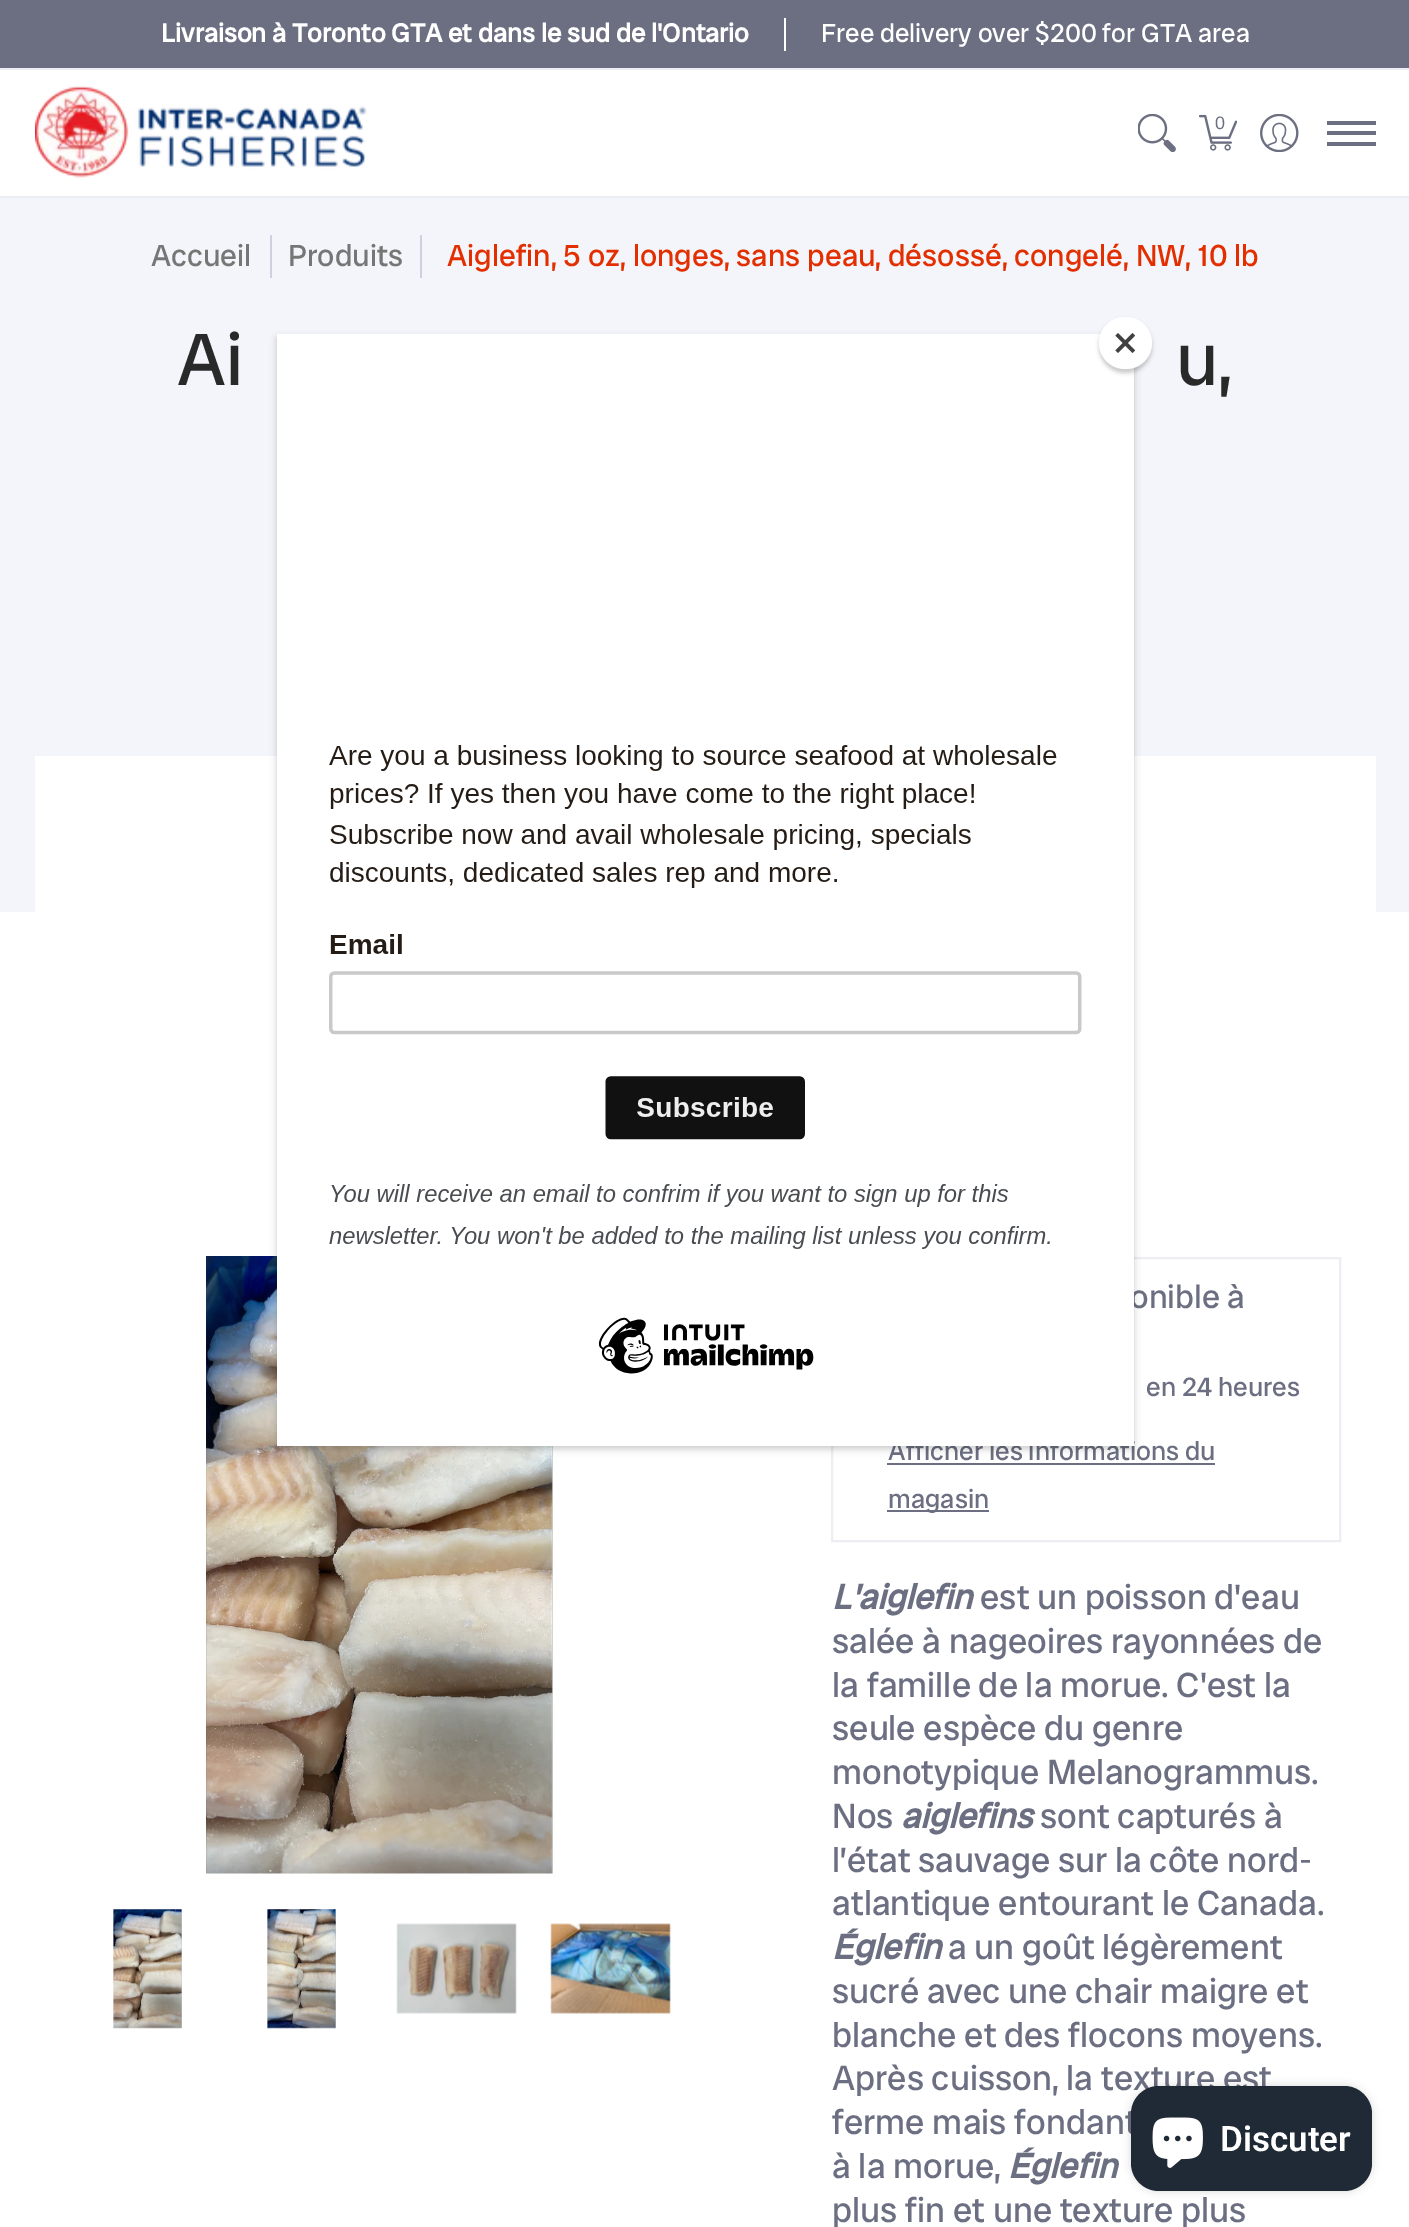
%!PS
<< /PageSize [1409 2227] /PageUsesTransparency true >> setpagedevice
/rgb { dup -16 bitshift 255 div exch dup -8 bitshift 255 and 255 div exch 255 and 255 div setrgbcolor } def
/font { [ exch dup neg 0 0 3 -1 roll 0 0 ] selectfont } def
/text { moveto show } def
/alpha { dup .setfillconstantalpha .setstrokeconstantalpha } def
/roundrect { 5 dict begin { /r /h /w /y /x } { exch def } forall
  x r add y moveto x w add y 2 copy h add r arct x w add y h add x 1 index r arct
  x y h add x y r arct x y 2 copy exch w add exch r arct closepath end } def
/shadow { 12 dict begin { /a /b /q /h /w /y /x } { exch def } forall gsave /was 0 def
  9 -2 -9 { dup b mul 4 div /e exch def 1 sub .425 mul 2.718 exch exp 1 add a .99 .min exch div /now exch def
    1 1 now sub 1 was sub div sub alpha /was now def
    w h .min e 2 mul add 0 gt { x e sub y e sub w e 2 mul add h e 2 mul add
      q e add b .6 mul add w h .min 2 div e add .min 0 .max roundrect fill } if } for grestore end } def
/picture { 5 dict begin { /h /w /y /x /name } { exch def } forall
  gsave x y translate w h scale
  w h 8 [w 0 0 h 0 0] name (r) file false 3 colorimage grestore end } def
0 .pushpdf14devicefilter
0 2227 translate 1 -1 scale
4 setmiterlimit
/s1 { /RadioCanadaBig-Bold 26.25 font 16#FFFFFF rgb } def
/s2 { /RadioCanadaBig-Regular 26.25 font 16#FFFFFF rgb } def
/s3 { /LiberationSans-Regular 18 font 16#6B6F81 rgb } def
/s4 { /RadioCanadaBig-Regular 30.6 font 16#767676 rgb } def
/s5 { /RadioCanadaBig-Regular 30.6 font 16#E32E00 rgb } def
/s6 { /RadioCanadaBig-Regular 74 font 16#292929 rgb } def
/s7 { /RadioCanadaBig-Regular 33 font 16#6B6F81 rgb } def
/s8 { /RadioCanadaBig-Regular 26.6 font 16#6B6F81 rgb } def
/s9 { /RadioCanadaBig-BoldItalic 35 font 16#6B6F81 rgb } def
/s10 { /RadioCanadaBig-Regular 35 font 16#6B6F81 rgb } def
/s11 { /Roboto-SemiBold 35 font 16#FFFFFF rgb } def
16#FFFFFF rgb
0 0 1409 2227 rectfill
16#6B6F81 rgb
0 0 1409 68 rectfill
16#EDEEF4 rgb
0 68 1409 2 rectfill
s1
(Livraison à Toronto GTA et dans le sud de l'Ontario) 161 42 text
784 18 2 33 rectfill
s2
(Free delivery over $200 for GTA area) 821 42 text
16#EDEEF4 rgb
0 196 1409 2 rectfill
(pic1.raw) 35 86 332 92 picture
(pic2.raw) 1138 114 38 38 picture
(pic3.raw) 1199 114 38 37 picture
s3
(0) 1215 129 text
(pic4.raw) 1260 114 39 38 picture
1327 121 49 4 rectfill
1327 142 49 4 rectfill
1327 131 49 4 rectfill
16#F4F5FA rgb
0 198 1409 714 rectfill
s4
(Accueil) 151 266 text
16#CDD0E1 rgb
270 235 2 43 rectfill
s4
(Produits) 288 266 text
16#CDD0E1 rgb
420 235 2 43 rectfill
s5
(Aiglefin, 5 oz, longes, sans peau, désossé, congelé, NW, 10 lb) 447 266 text
s6
(Ai) 177 385 text
(u,) 1176 385 text
16#FFFFFF rgb
35 756 1341 156 rectfill
(pic5.raw) 206 1256 347 618 picture
(pic6.raw) 113 1909 69 120 picture
(pic7.raw) 267 1909 69 120 picture
(pic8.raw) 396 1923 121 91 picture
(pic9.raw) 550 1923 121 91 picture
16#EDEEF4 rgb
2 setlinewidth
832 1258 508 283 rectstroke
s7
(onible à) 1130 1308 text
s8
(en 24 heures) 1146 1396 text
(Afficher les informations du) 888 1460 text
887 1463 328 2 rectfill
887 1510 102 2 rectfill
(magasin) 888 1508 text
s9
(L'aiglefin) 832 1609 text
s10
(est un poisson d'eau) 980 1609 text
(salée à nageoires rayonnées de) 832 1653 text
(la famille de la morue. C'est la) 832 1697 text
(seule espèce du genre) 832 1740 text
(monotypique Melanogrammus.) 832 1784 text
(Nos) 832 1828 text
s9
(aiglefins) 901 1828 text
s10
(sont capturés à) 1040 1828 text
(l’état sauvage sur la côte nord-) 832 1872 text
(atlantique entourant le Canada.) 832 1915 text
s9
(Églefin) 832 1959 text
s10
(a un goût légèrement) 948 1959 text
(sucré avec une chair maigre et) 832 2003 text
(blanche et des flocons moyens.) 832 2047 text
(Après cuisson, la texture est) 832 2090 text
(ferme mais fondant) 832 2134 text
(à la morue,) 832 2178 text
s9
(Églefin) 1008 2178 text
s10
(plus fin et une texture plus) 832 2222 text
16#000000 rgb
277 338 857 1111 0 3.5 0.2 shadow
(pic10.raw) 277 334 857 1112 picture
1099 320 53 53 26.5 2 0.2 shadow
16#FFFFFF rgb
1099 317 53 52 26 roundrect fill
16#414141 rgb
1132.5 333 moveto 1135 335.5 lineto 1118 353 lineto 1115.5 350.5 lineto closepath fill
1115.5 335.5 moveto 1118 333 lineto 1135 350.5 lineto 1132.5 353 lineto closepath fill
16#000000 rgb
1131 2086 241 105 28 4.5 0.15 shadow
16#202A36 rgb
1131 2086 241 105 28 roundrect fill
(pic11.raw) 1152 2117 51 51 picture
s11
(Discuter) 1220 2151 text
.poppdf14devicefilter showpage
